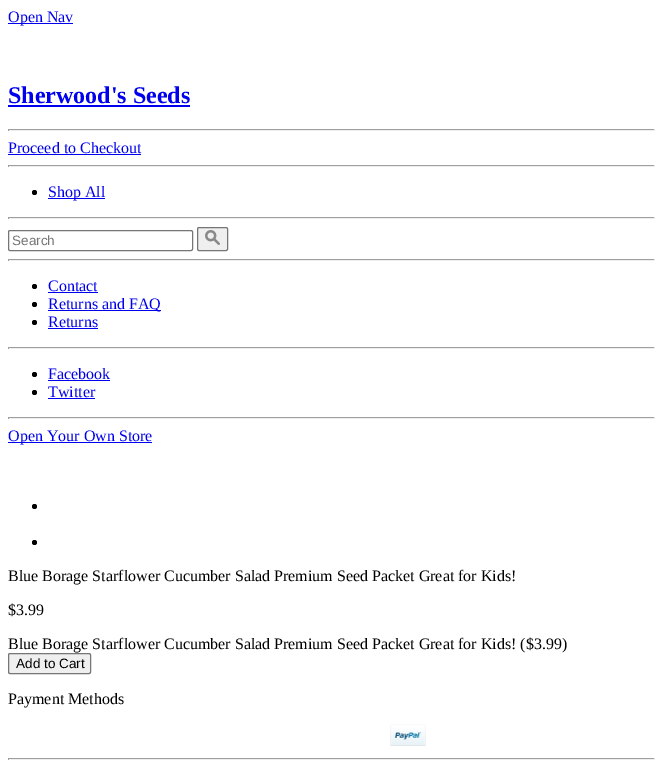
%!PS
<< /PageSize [663 774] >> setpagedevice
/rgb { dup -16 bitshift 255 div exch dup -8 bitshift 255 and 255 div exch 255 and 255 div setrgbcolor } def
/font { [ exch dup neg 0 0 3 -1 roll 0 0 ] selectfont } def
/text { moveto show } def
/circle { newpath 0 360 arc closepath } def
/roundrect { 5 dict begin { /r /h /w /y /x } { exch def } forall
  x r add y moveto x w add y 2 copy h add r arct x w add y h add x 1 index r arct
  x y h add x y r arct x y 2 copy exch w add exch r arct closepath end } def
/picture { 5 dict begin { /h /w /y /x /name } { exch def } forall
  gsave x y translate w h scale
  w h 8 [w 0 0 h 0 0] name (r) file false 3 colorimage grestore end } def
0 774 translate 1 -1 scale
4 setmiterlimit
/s1 { /LiberationSerif-Regular 16 font 16#0000EE rgb } def
/s2 { /LiberationSerif-Bold 24 font 16#0000EE rgb } def
/s3 { /LiberationSans-Regular 13.5 font 16#757575 rgb } def
/s4 { /LiberationSerif-Regular 16 font 16#000000 rgb } def
/s5 { /LiberationSans-Regular 13.5 font 16#000000 rgb } def
16#FFFFFF rgb
0 0 663 774 rectfill
16#0000EE rgb
8 23 65 1 rectfill
s1
(Open Nav) 8 22 text
s2
(Sherwood's Seeds) 8 103 text
8 105 182 2 rectfill
16#9F9F9F rgb
8 129 647 1 rectfill
16#EEEEEE rgb
654 129 1 2 rectfill
8 130 647 1 rectfill
16#9F9F9F rgb
8 129 1 2 rectfill
s1
(Proceed to Checkout) 8 153 text
8 154 133 1 rectfill
16#9F9F9F rgb
8 165 647 1 rectfill
16#EEEEEE rgb
654 165 1 2 rectfill
8 166 647 1 rectfill
16#9F9F9F rgb
8 165 1 2 rectfill
16#000000 rgb
34.5 192.5 2.5 circle fill
16#0000EE rgb
48 198 57 1 rectfill
(Shop All) 48 197 text
16#9F9F9F rgb
8 217 647 1 rectfill
16#EEEEEE rgb
654 217 1 2 rectfill
8 218 647 1 rectfill
16#9F9F9F rgb
8 217 1 2 rectfill
16#767676 rgb
8.5 230.5 184 20 1.5 roundrect stroke
s3
(Search) 12 245 text
16#EFEFEF rgb
197.5 227.5 30 23 1.5 roundrect gsave fill grestore
16#767676 rgb
stroke
(pic1.raw) 205 230 15 15 picture
16#9F9F9F rgb
8 259 647 1 rectfill
16#EEEEEE rgb
654 259 1 2 rectfill
8 260 647 1 rectfill
16#9F9F9F rgb
8 259 1 2 rectfill
16#000000 rgb
34.5 286.5 2.5 circle fill
s1
(Contact) 48 291 text
48 292 50 1 rectfill
16#000000 rgb
34.5 304.5 2.5 circle fill
16#0000EE rgb
48 310 113 1 rectfill
(Returns and FAQ) 48 309 text
16#000000 rgb
34.5 322.5 2.5 circle fill
s1
(Returns) 48 327 text
48 328 50 1 rectfill
16#9F9F9F rgb
8 347 647 1 rectfill
16#EEEEEE rgb
654 347 1 2 rectfill
8 348 647 1 rectfill
16#9F9F9F rgb
8 347 1 2 rectfill
16#000000 rgb
34.5 374.5 2.5 circle fill
s1
(Facebook) 48 379 text
48 380 62 1 rectfill
16#000000 rgb
34.5 392.5 2.5 circle fill
s1
(Twitter) 48 397 text
48 398 47 1 rectfill
16#9F9F9F rgb
8 417 647 1 rectfill
16#EEEEEE rgb
654 417 1 2 rectfill
8 418 647 1 rectfill
16#9F9F9F rgb
8 417 1 2 rectfill
16#0000EE rgb
8 442 144 1 rectfill
(Open Your Own Store) 8 441 text
16#000000 rgb
34.5 506.5 2.5 circle fill
34.5 542.5 2.5 circle fill
(Blue Borage Starflower Cucumber Salad Premium Seed Packet Great for Kids!) 8 581 text
($3.99) 8 615 text
(Blue Borage Starflower Cucumber Salad Premium Seed Packet Great for Kids! \($3.99\)) 8 649 text
16#EFEFEF rgb
8.5 653.5 82 20 1.5 roundrect gsave fill grestore
16#767676 rgb
stroke
s5
(Add to Cart) 16 668 text
s4
(Payment Methods) 8 704 text
(pic2.raw) 390 724 36 22 picture
16#9F9F9F rgb
8 758 647 1 rectfill
16#EEEEEE rgb
654 758 1 2 rectfill
8 759 647 1 rectfill
16#9F9F9F rgb
8 758 1 2 rectfill
showpage
